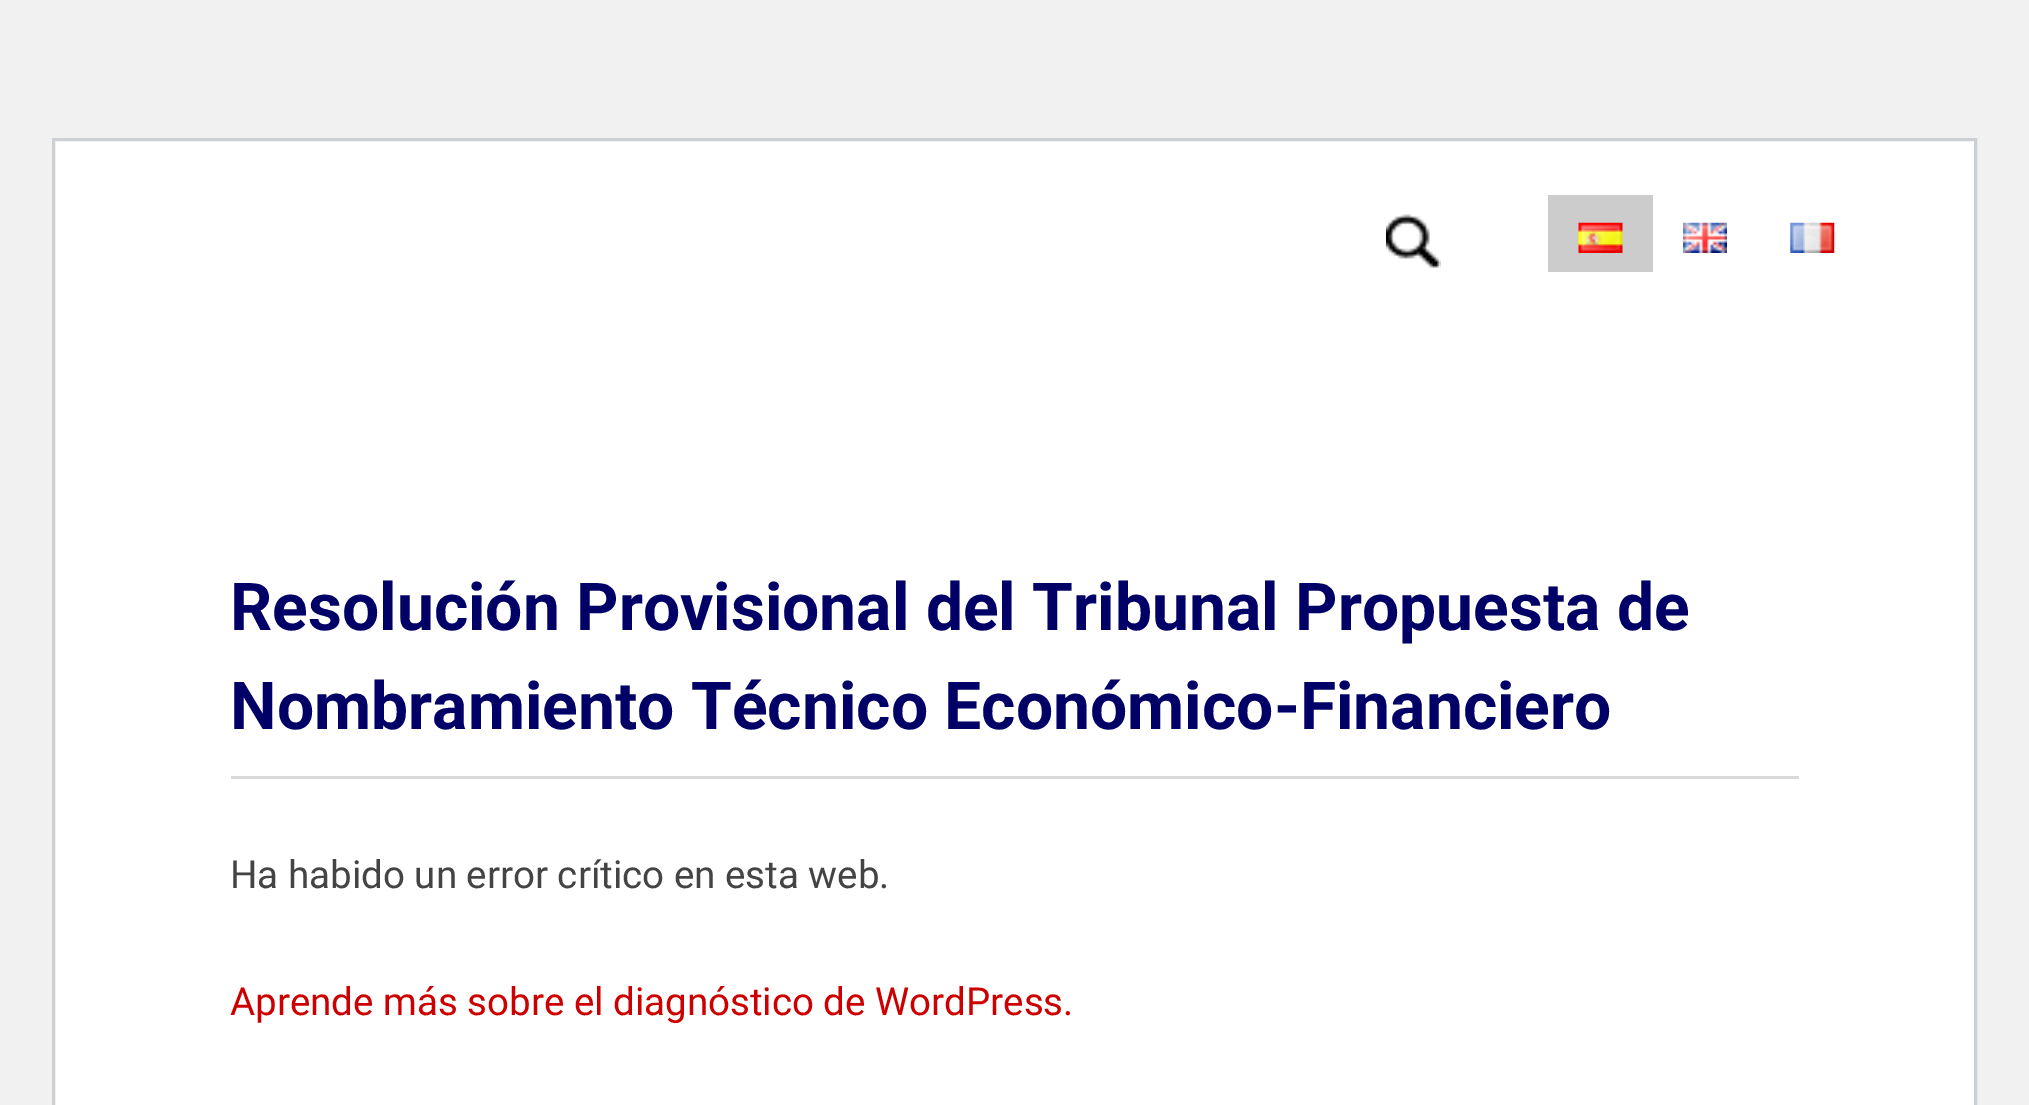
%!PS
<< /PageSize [2029 1105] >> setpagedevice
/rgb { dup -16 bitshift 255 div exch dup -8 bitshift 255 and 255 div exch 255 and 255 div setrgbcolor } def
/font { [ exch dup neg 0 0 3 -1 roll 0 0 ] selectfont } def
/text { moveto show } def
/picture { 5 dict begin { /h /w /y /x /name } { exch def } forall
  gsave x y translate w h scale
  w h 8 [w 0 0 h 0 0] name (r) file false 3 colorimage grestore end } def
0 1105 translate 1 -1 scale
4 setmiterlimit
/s1 { /Roboto-Bold 66 font 16#000066 rgb } def
/s2 { /Roboto-Regular 38.5 font 16#444444 rgb } def
/s3 { /Roboto-Regular 38.5 font 16#CC0000 rgb } def
16#F1F1F1 rgb
0 0 2029 1105 rectfill
16#FFFFFF rgb
53.5 139.5 moveto 1975.5 139.5 lineto 1975.5 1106.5 lineto 53.5 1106.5 lineto closepath gsave fill grestore
16#CCD0D4 rgb
3 setlinewidth
stroke
(pic1.raw) 1386 214 55 54 picture
16#CCCCCC rgb
1548 195 105 77 rectfill
(pic2.raw) 1578 222 45 31 picture
(pic3.raw) 1683 222 44 31 picture
(pic4.raw) 1790 222 45 31 picture
16#DADADA rgb
231 776 1568 3 rectfill
s1
(Resolución Provisional del Tribunal Propuesta de) 230 630 text
(Nombramiento Técnico Económico-Financiero) 230 729 text
s2
(Ha habido un error crítico en esta web.) 230 888 text
s3
(Aprende más sobre el diagnóstico de WordPress.) 230 1015 text
showpage
